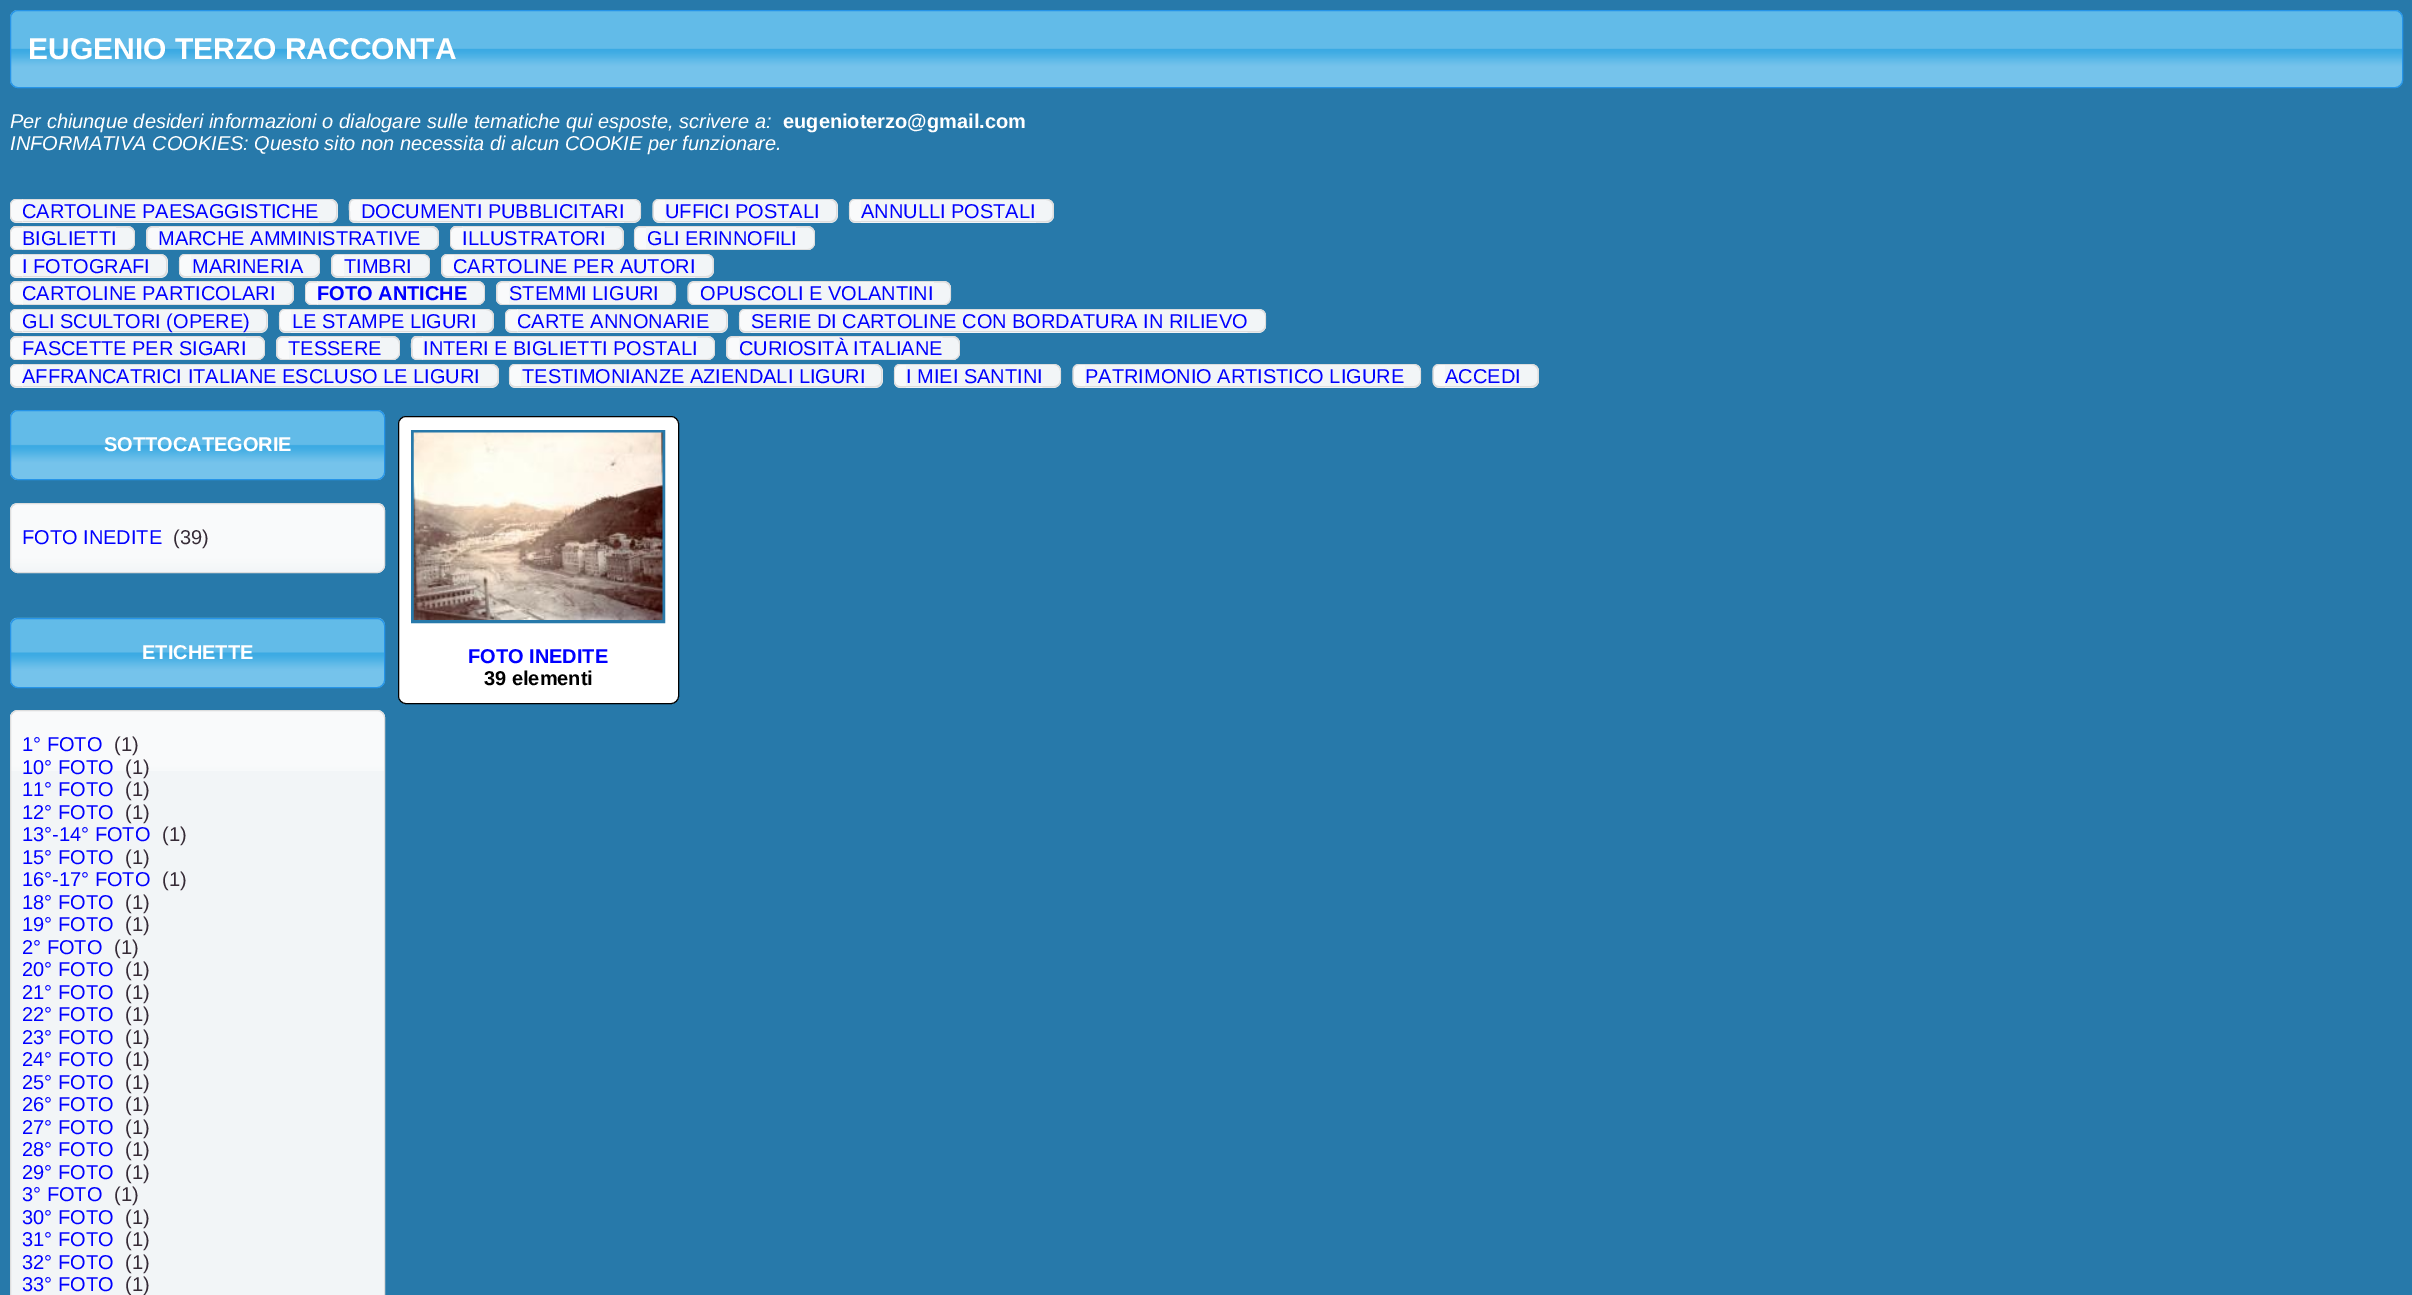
%!PS
<< /PageSize [2412 1295] >> setpagedevice
/rgb { dup -16 bitshift 255 div exch dup -8 bitshift 255 and 255 div exch 255 and 255 div setrgbcolor } def
/font { [ exch dup neg 0 0 3 -1 roll 0 0 ] selectfont } def
/text { moveto show } def
/roundrect { 5 dict begin { /r /h /w /y /x } { exch def } forall
  x r add y moveto x w add y 2 copy h add r arct x w add y h add x 1 index r arct
  x y h add x y r arct x y 2 copy exch w add exch r arct closepath end } def
/picture { 5 dict begin { /h /w /y /x /name } { exch def } forall
  gsave x y translate w h scale
  w h 8 [w 0 0 h 0 0] name (r) file false 3 colorimage grestore end } def
0 1295 translate 1 -1 scale
4 setmiterlimit
/s1 { /LiberationSans-Bold 30 font 16#FFFFFF rgb } def
/s2 { /LiberationSans-Italic 20 font 16#FFFFFF rgb } def
/s3 { /LiberationSans-Bold 20 font 16#FFFFFF rgb } def
/s4 { /LiberationSans-Regular 20 font 16#0000FF rgb } def
/s5 { /LiberationSans-Bold 20 font 16#0000FF rgb } def
/s6 { /LiberationSans-Regular 20 font 16#362B36 rgb } def
/s7 { /LiberationSans-Bold 20 font 16#000000 rgb } def
16#2779AA rgb
0 0 2412 1295 rectfill
(pic1.raw) 10 10 2393 78 picture
16#2694E8 rgb
10.5 10.5 2392 77 7.5 roundrect stroke
s1
(EUGENIO TERZO RACCONTA) 28 59 text
s2
(Per chiunque desideri informazioni o dialogare sulle tematiche qui esposte, scrivere a:) 10 128 text
s3
(eugenioterzo@gmail.com) 783 128 text
s2
(INFORMATIVA COOKIES: Questo sito non necessita di alcun COOKIE per funzionare.) 10 150 text
16#F2F5F7 rgb
16.5 199 moveto 23 199 lineto 23 223 lineto 16.5 223 lineto 13 223 10 220 10 216.5 curveto 10 205.5 lineto 10 202 13 199 16.5 199 curveto closepath fill
(pic2.raw) 10 200 328 23 picture
354.5 199 moveto 360 199 lineto 360 223 lineto 354.5 223 lineto 351.5 223 349 220.5 349 217.5 curveto 349 204.5 lineto 349 201.5 351.5 199 354.5 199 curveto closepath fill
(pic3.raw) 348 200 294 23 picture
659 199 moveto 665 199 lineto 665 223 lineto 659 223 lineto 655.5 223 653 220.5 653 217 curveto 653 205 lineto 653 201.5 655.5 199 659 199 curveto closepath fill
(pic4.raw) 652 200 186 23 picture
855 199 moveto 861 199 lineto 861 223 lineto 855 223 lineto 851.5 223 849 220.5 849 217 curveto 849 205 lineto 849 201.5 851.5 199 855 199 curveto closepath fill
(pic5.raw) 848 200 206 23 picture
23 200 296 23 rectfill
s4
(CARTOLINE PAESAGGISTICHE) 22 218 text
16#DDDDDD rgb
16 199 moveto 22.5 199 lineto 22.5 222.5 lineto 16 222.5 lineto 13 222.5 10 219.5 10 216 curveto 10 205 lineto 10 201.5 13 199 16 199 curveto closepath 16 200 moveto 22.5 200 lineto 22.5 221 lineto 16 221 lineto 13.5 221 11 219 11 216 curveto 11 205 lineto 11 202 13.5 200 16 200 curveto closepath eofill
23 199 296 1 rectfill
23 221 296 1 rectfill
16#F2F5F7 rgb
319 199 moveto 330 199 lineto 334.5 199 338 202.5 338 207 curveto 338 215 lineto 338 219.5 334.5 223 330 223 curveto 319 223 lineto closepath fill
16#DDDDDD rgb
319 199 moveto 330 199 lineto 334 199 337.5 202 337.5 206 curveto 337.5 215 lineto 337.5 219 334 222.5 330 222.5 curveto 319 222.5 lineto closepath 319 200 moveto 330 200 lineto 333.5 200 336 203 336 206 curveto 336 215 lineto 336 218.5 333.5 221 330 221 curveto 319 221 lineto closepath eofill
16#F2F5F7 rgb
360 200 264 23 rectfill
s4
(DOCUMENTI PUBBLICITARI) 361 218 text
16#DDDDDD rgb
354.5 199 moveto 360 199 lineto 360 222.5 lineto 349 222.5 349 222 349 210.5 curveto 349 206 347.5 199 354.5 199 curveto closepath 354.5 200 moveto 360 200 lineto 360 221 lineto 350 221 350 221.5 350 210.5 curveto 350 207 349 200 354.5 200 curveto closepath eofill
360 199 264 1 rectfill
360 221 264 1 rectfill
16#F2F5F7 rgb
624 199 moveto 633 199 lineto 637.5 199 641 202.5 641 207 curveto 641 215 lineto 641 219.5 637.5 223 633 223 curveto 624 223 lineto closepath fill
16#DDDDDD rgb
624 199 moveto 634 199 lineto 638 199 641 202 641 206 curveto 641 215 lineto 641 219 638 222.5 634 222.5 curveto 624 222.5 lineto closepath 624 200 moveto 634 200 lineto 637 200 640 203 640 206 curveto 640 215 lineto 640 218.5 637 221 634 221 curveto 624 221 lineto closepath eofill
16#F2F5F7 rgb
665 200 155 23 rectfill
s4
(UFFICI POSTALI) 665 218 text
16#DDDDDD rgb
659 199 moveto 665 199 lineto 665 222.5 lineto 659 222.5 lineto 655.5 222.5 652.5 219.5 652.5 216 curveto 652.5 205 lineto 652.5 201.5 655.5 199 659 199 curveto closepath 659 200 moveto 665 200 lineto 665 221 lineto 659 221 lineto 656 221 654 219 654 216 curveto 654 205 lineto 654 202 656 200 659 200 curveto closepath eofill
665 199 155 1 rectfill
665 221 155 1 rectfill
16#F2F5F7 rgb
820 199 moveto 830 199 lineto 834.5 199 838 202.5 838 207 curveto 838 215 lineto 838 219.5 834.5 223 830 223 curveto 820 223 lineto closepath fill
16#DDDDDD rgb
820 199 moveto 830 199 lineto 834 199 837.5 202 837.5 206 curveto 837.5 215 lineto 837.5 219 834 222.5 830 222.5 curveto 820 222.5 lineto closepath 820 200 moveto 830 200 lineto 833.5 200 836 203 836 206 curveto 836 215 lineto 836 218.5 833.5 221 830 221 curveto 820 221 lineto closepath eofill
16#F2F5F7 rgb
861 200 175 23 rectfill
s4
(ANNULLI POSTALI) 861 218 text
16#DDDDDD rgb
855 199 moveto 861 199 lineto 861 222.5 lineto 855 222.5 lineto 851.5 222.5 849 219.5 849 216 curveto 849 205 lineto 849 201.5 851.5 199 855 199 curveto closepath 855 200 moveto 861 200 lineto 861 221 lineto 855 221 lineto 852 221 850 219 850 216 curveto 850 205 lineto 850 202 852 200 855 200 curveto closepath eofill
861 199 175 1 rectfill
861 221 175 1 rectfill
16#F2F5F7 rgb
1036 199 moveto 1046 199 lineto 1050.5 199 1054 202.5 1054 207 curveto 1054 215 lineto 1054 219.5 1050.5 223 1046 223 curveto 1036 223 lineto closepath fill
16#DDDDDD rgb
1036 199 moveto 1046 199 lineto 1050.5 199 1054 202 1054 206 curveto 1054 215 lineto 1054 219 1050.5 222.5 1046 222.5 curveto 1036 222.5 lineto closepath 1036 200 moveto 1046 200 lineto 1049.5 200 1052.5 203 1052.5 206 curveto 1052.5 215 lineto 1052.5 218.5 1049.5 221 1046 221 curveto 1036 221 lineto closepath eofill
16#F2F5F7 rgb
16.5 226 moveto 23 226 lineto 23 250 lineto 16.5 250 lineto 13 250 10 247 10 243.5 curveto 10 232.5 lineto 10 229 13 226 16.5 226 curveto closepath fill
(pic6.raw) 10 227 125 23 picture
(pic7.raw) 146 227 293 23 picture
456.5 226 moveto 463 226 lineto 463 250 lineto 456.5 250 lineto 453 250 450 247 450 243.5 curveto 450 232.5 lineto 450 229 453 226 456.5 226 curveto closepath fill
(pic8.raw) 450 227 174 23 picture
(pic9.raw) 633 227 182 23 picture
23 227 93 22 rectfill
s4
(BIGLIETTI) 22 245 text
16#DDDDDD rgb
16 226 moveto 22.5 226 lineto 22.5 250 lineto 16 250 lineto 13 250 10 247 10 244 curveto 10 232.5 lineto 10 229 13 226 16 226 curveto closepath 16 227.5 moveto 22.5 227.5 lineto 22.5 249 lineto 16 249 lineto 13.5 249 11 246.5 11 244 curveto 11 232.5 lineto 11 229.5 13.5 227.5 16 227.5 curveto closepath eofill
23 226 93 1 rectfill
23 249 93 1 rectfill
16#F2F5F7 rgb
116 226 moveto 127 226 lineto 131.5 226 135 229.5 135 234 curveto 135 242 lineto 135 246.5 131.5 250 127 250 curveto 116 250 lineto closepath fill
16#DDDDDD rgb
116 226 moveto 127.5 226 lineto 131.5 226 135 229.5 135 234 curveto 135 242.5 lineto 135 246.5 131.5 250 127.5 250 curveto 116 250 lineto closepath 116 227.5 moveto 127.5 227.5 lineto 131 227.5 134 230.5 134 234 curveto 134 242.5 lineto 134 246 131 249 127.5 249 curveto 116 249 lineto closepath eofill
16#F2F5F7 rgb
159 227 261 22 rectfill
s4
(MARCHE AMMINISTRATIVE) 158 245 text
16#DDDDDD rgb
152.5 226 moveto 159 226 lineto 159 250 lineto 152.5 250 lineto 149 250 146 247 146 244 curveto 146 232.5 lineto 146 229 149 226 152.5 226 curveto closepath 152.5 227.5 moveto 159 227.5 lineto 159 249 lineto 152.5 249 lineto 149.5 249 147.5 246.5 147.5 244 curveto 147.5 232.5 lineto 147.5 229.5 149.5 227.5 152.5 227.5 curveto closepath eofill
159 226 261 1 rectfill
159 249 261 1 rectfill
16#F2F5F7 rgb
420 226 moveto 431 226 lineto 435.5 226 439 229.5 439 234 curveto 439 242 lineto 439 246.5 435.5 250 431 250 curveto 420 250 lineto closepath fill
16#DDDDDD rgb
420 226 moveto 431 226 lineto 435.5 226 439 229.5 439 234 curveto 439 242.5 lineto 439 246.5 435.5 250 431 250 curveto 420 250 lineto closepath 420 227.5 moveto 431 227.5 lineto 434.5 227.5 437.5 230.5 437.5 234 curveto 437.5 242.5 lineto 437.5 246 434.5 249 431 249 curveto 420 249 lineto closepath eofill
16#F2F5F7 rgb
463 227 142 22 rectfill
s4
(ILLUSTRATORI) 462 245 text
16#DDDDDD rgb
456 226 moveto 462.5 226 lineto 462.5 250 lineto 456 250 lineto 453 250 450 247 450 244 curveto 450 232.5 lineto 450 229 453 226 456 226 curveto closepath 456 227.5 moveto 462.5 227.5 lineto 462.5 249 lineto 456 249 lineto 453.5 249 451 246.5 451 244 curveto 451 232.5 lineto 451 229.5 453.5 227.5 456 227.5 curveto closepath eofill
463 226 142 1 rectfill
463 249 142 1 rectfill
16#F2F5F7 rgb
605 226 moveto 616 226 lineto 620.5 226 624 229.5 624 234 curveto 624 242 lineto 624 246.5 620.5 250 616 250 curveto 605 250 lineto closepath fill
16#DDDDDD rgb
605 226 moveto 616 226 lineto 620.5 226 624 229.5 624 234 curveto 624 242.5 lineto 624 246.5 620.5 250 616 250 curveto 605 250 lineto closepath 605 227.5 moveto 616 227.5 lineto 619.5 227.5 622.5 230.5 622.5 234 curveto 622.5 242.5 lineto 622.5 246 619.5 249 616 249 curveto 605 249 lineto closepath eofill
16#F2F5F7 rgb
646 227 150 22 rectfill
s4
(GLI ERINNOFILI) 647 245 text
16#DDDDDD rgb
640 226 moveto 646 226 lineto 646 250 lineto 640 250 lineto 636.5 250 634 247 634 244 curveto 634 232.5 lineto 634 229 636.5 226 640 226 curveto closepath 640 227.5 moveto 646 227.5 lineto 646 249 lineto 640 249 lineto 637 249 635 246.5 635 244 curveto 635 232.5 lineto 635 229.5 637 227.5 640 227.5 curveto closepath eofill
646 226 150 1 rectfill
646 249 150 1 rectfill
16#F2F5F7 rgb
796 226 moveto 807 226 lineto 811.5 226 815 229.5 815 234 curveto 815 242 lineto 815 246.5 811.5 250 807 250 curveto 796 250 lineto closepath fill
16#DDDDDD rgb
796 226 moveto 807.5 226 lineto 811.5 226 815 229.5 815 234 curveto 815 242.5 lineto 815 246.5 811.5 250 807.5 250 curveto 796 250 lineto closepath 796 227.5 moveto 807.5 227.5 lineto 811 227.5 814 230.5 814 234 curveto 814 242.5 lineto 814 246 811 249 807.5 249 curveto 796 249 lineto closepath eofill
16#F2F5F7 rgb
16.5 254 moveto 23 254 lineto 23 278 lineto 16.5 278 lineto 13 278 10 275 10 271.5 curveto 10 260.5 lineto 10 257 13 254 16.5 254 curveto closepath fill
(pic10.raw) 10 255 158 23 picture
185 254 moveto 191 254 lineto 191 278 lineto 185 278 lineto 181.5 278 179 275.5 179 272 curveto 179 260 lineto 179 256.5 181.5 254 185 254 curveto closepath fill
(pic11.raw) 178 255 142 23 picture
337.5 254 moveto 344 254 lineto 344 278 lineto 337.5 278 lineto 334 278 331 275 331 271.5 curveto 331 260.5 lineto 331 257 334 254 337.5 254 curveto closepath fill
(pic12.raw) 331 255 99 23 picture
447.5 254 moveto 454 254 lineto 454 278 lineto 447.5 278 lineto 444 278 441 275 441 271.5 curveto 441 260.5 lineto 441 257 444 254 447.5 254 curveto closepath fill
(pic13.raw) 441 255 273 23 picture
23 255 127 23 rectfill
s4
(I FOTOGRAFI) 22 273 text
16#DDDDDD rgb
16 254 moveto 22.5 254 lineto 22.5 277.5 lineto 16 277.5 lineto 13 277.5 10 274.5 10 271 curveto 10 260 lineto 10 256.5 13 254 16 254 curveto closepath 16 255 moveto 22.5 255 lineto 22.5 276 lineto 16 276 lineto 13.5 276 11 274 11 271 curveto 11 260 lineto 11 257 13.5 255 16 255 curveto closepath eofill
23 254 127 1 rectfill
23 276 127 1 rectfill
16#F2F5F7 rgb
150 254 moveto 160 254 lineto 164.5 254 168 257.5 168 262 curveto 168 270 lineto 168 274.5 164.5 278 160 278 curveto 150 278 lineto closepath fill
16#DDDDDD rgb
150 254 moveto 160 254 lineto 164 254 167.5 257 167.5 261 curveto 167.5 270 lineto 167.5 274 164 277.5 160 277.5 curveto 150 277.5 lineto closepath 150 255 moveto 160 255 lineto 163.5 255 166 258 166 261 curveto 166 270 lineto 166 273.5 163.5 276 160 276 curveto 150 276 lineto closepath eofill
16#F2F5F7 rgb
191 255 112 23 rectfill
16#DDDDDD rgb
191 254 112 1 rectfill
191 276 112 1 rectfill
16#F2F5F7 rgb
303 254 moveto 312 254 lineto 316.5 254 320 257.5 320 262 curveto 320 270 lineto 320 274.5 316.5 278 312 278 curveto 303 278 lineto closepath fill
16#DDDDDD rgb
302.5 254 moveto 312.5 254 lineto 316.5 254 320 257 320 261 curveto 320 270 lineto 320 274 316.5 277.5 312.5 277.5 curveto 302.5 277.5 lineto closepath 302.5 255 moveto 312.5 255 lineto 316 255 319 258 319 261 curveto 319 270 lineto 319 273.5 316 276 312.5 276 curveto 302.5 276 lineto closepath eofill
s4
(MARINERIA) 192 273 text
16#DDDDDD rgb
185 254 moveto 191 254 lineto 191 277.5 lineto 185 277.5 lineto 181.5 277.5 179 274.5 179 271 curveto 179 260 lineto 179 256.5 181.5 254 185 254 curveto closepath 185 255 moveto 191 255 lineto 191 276 lineto 185 276 lineto 182 276 180 274 180 271 curveto 180 260 lineto 180 257 182 255 185 255 curveto closepath eofill
16#F2F5F7 rgb
344 255 67 23 rectfill
s4
(TIMBRI) 344 273 text
16#DDDDDD rgb
337.5 254 moveto 344 254 lineto 344 277.5 lineto 337.5 277.5 lineto 334 277.5 331 274.5 331 271 curveto 331 260 lineto 331 256.5 334 254 337.5 254 curveto closepath 337.5 255 moveto 344 255 lineto 344 276 lineto 337.5 276 lineto 334.5 276 332.5 274 332.5 271 curveto 332.5 260 lineto 332.5 257 334.5 255 337.5 255 curveto closepath eofill
344 254 67 1 rectfill
344 276 67 1 rectfill
16#F2F5F7 rgb
411 254 moveto 422 254 lineto 426.5 254 430 257.5 430 262 curveto 430 270 lineto 430 274.5 426.5 278 422 278 curveto 411 278 lineto closepath fill
16#DDDDDD rgb
411 254 moveto 422.5 254 lineto 426.5 254 430 257 430 261 curveto 430 270 lineto 430 274 426.5 277.5 422.5 277.5 curveto 411 277.5 lineto closepath 411 255 moveto 422.5 255 lineto 426 255 429 258 429 261 curveto 429 270 lineto 429 273.5 426 276 422.5 276 curveto 411 276 lineto closepath eofill
16#F2F5F7 rgb
454 255 241 23 rectfill
s4
(CARTOLINE PER AUTORI) 453 273 text
16#DDDDDD rgb
447.5 254 moveto 454 254 lineto 454 277.5 lineto 447.5 277.5 lineto 444 277.5 441 274.5 441 271 curveto 441 260 lineto 441 256.5 444 254 447.5 254 curveto closepath 447.5 255 moveto 454 255 lineto 454 276 lineto 447.5 276 lineto 444.5 276 442.5 274 442.5 271 curveto 442.5 260 lineto 442.5 257 444.5 255 447.5 255 curveto closepath eofill
454 254 241 1 rectfill
454 276 241 1 rectfill
16#F2F5F7 rgb
695 254 moveto 706 254 lineto 710.5 254 714 257.5 714 262 curveto 714 270 lineto 714 274.5 710.5 278 706 278 curveto 695 278 lineto closepath fill
16#DDDDDD rgb
695 254 moveto 706 254 lineto 710.5 254 714 257 714 261 curveto 714 270 lineto 714 274 710.5 277.5 706 277.5 curveto 695 277.5 lineto closepath 695 255 moveto 706 255 lineto 709.5 255 712.5 258 712.5 261 curveto 712.5 270 lineto 712.5 273.5 709.5 276 706 276 curveto 695 276 lineto closepath eofill
16#F2F5F7 rgb
16.5 281 moveto 23 281 lineto 23 305 lineto 16.5 305 lineto 13 305 10 302 10 298.5 curveto 10 287.5 lineto 10 284 13 281 16.5 281 curveto closepath fill
(pic14.raw) 10 282 284 23 picture
311.5 281 moveto 318 281 lineto 318 305 lineto 311.5 305 lineto 308 305 305 302 305 298.5 curveto 305 287.5 lineto 305 284 308 281 311.5 281 curveto closepath fill
(pic15.raw) 305 282 180 23 picture
(pic16.raw) 496 282 181 23 picture
(pic17.raw) 687 282 265 23 picture
23 282 253 22 rectfill
s4
(CARTOLINE PARTICOLARI) 22 300 text
16#DDDDDD rgb
16 281 moveto 22.5 281 lineto 22.5 305 lineto 16 305 lineto 13 305 10 302 10 299 curveto 10 287.5 lineto 10 284 13 281 16 281 curveto closepath 16 282.5 moveto 22.5 282.5 lineto 22.5 304 lineto 16 304 lineto 13.5 304 11 301.5 11 299 curveto 11 287.5 lineto 11 284.5 13.5 282.5 16 282.5 curveto closepath eofill
23 281 253 1 rectfill
23 304 253 1 rectfill
16#F2F5F7 rgb
276 281 moveto 286 281 lineto 290.5 281 294 284.5 294 289 curveto 294 297 lineto 294 301.5 290.5 305 286 305 curveto 276 305 lineto closepath fill
16#DDDDDD rgb
276 281 moveto 286 281 lineto 290.5 281 294 284.5 294 289 curveto 294 297.5 lineto 294 301.5 290.5 305 286 305 curveto 276 305 lineto closepath 276 282.5 moveto 286 282.5 lineto 289.5 282.5 292.5 285.5 292.5 289 curveto 292.5 297.5 lineto 292.5 301 289.5 304 286 304 curveto 276 304 lineto closepath eofill
16#F2F5F7 rgb
318 282 150 22 rectfill
s5
(FOTO ANTICHE) 317 300 text
16#DDDDDD rgb
311 281 moveto 317.5 281 lineto 317.5 305 lineto 311 305 lineto 308 305 305 302 305 299 curveto 305 287.5 lineto 305 284 308 281 311 281 curveto closepath 311 282.5 moveto 317.5 282.5 lineto 317.5 304 lineto 311 304 lineto 308.5 304 306 301.5 306 299 curveto 306 287.5 lineto 306 284.5 308.5 282.5 311 282.5 curveto closepath eofill
318 281 150 1 rectfill
318 304 150 1 rectfill
16#F2F5F7 rgb
468 281 moveto 477 281 lineto 481.5 281 485 284.5 485 289 curveto 485 297 lineto 485 301.5 481.5 305 477 305 curveto 468 305 lineto closepath fill
16#DDDDDD rgb
467.5 281 moveto 477.5 281 lineto 481.5 281 485 284.5 485 289 curveto 485 297.5 lineto 485 301.5 481.5 305 477.5 305 curveto 467.5 305 lineto closepath 467.5 282.5 moveto 477.5 282.5 lineto 481 282.5 484 285.5 484 289 curveto 484 297.5 lineto 484 301 481 304 477.5 304 curveto 467.5 304 lineto closepath eofill
16#F2F5F7 rgb
509 282 150 22 rectfill
s4
(STEMMI LIGURI) 509 300 text
16#DDDDDD rgb
502.5 281 moveto 509 281 lineto 509 305 lineto 502.5 305 lineto 499 305 496 302 496 299 curveto 496 287.5 lineto 496 284 499 281 502.5 281 curveto closepath 502.5 282.5 moveto 509 282.5 lineto 509 304 lineto 502.5 304 lineto 499.5 304 497.5 301.5 497.5 299 curveto 497.5 287.5 lineto 497.5 284.5 499.5 282.5 502.5 282.5 curveto closepath eofill
509 281 150 1 rectfill
509 304 150 1 rectfill
16#F2F5F7 rgb
659 281 moveto 668 281 lineto 672.5 281 676 284.5 676 289 curveto 676 297 lineto 676 301.5 672.5 305 668 305 curveto 659 305 lineto closepath fill
16#DDDDDD rgb
659 281 moveto 669 281 lineto 673 281 676 284.5 676 289 curveto 676 297.5 lineto 676 301.5 673 305 669 305 curveto 659 305 lineto closepath 659 282.5 moveto 669 282.5 lineto 672 282.5 675 285.5 675 289 curveto 675 297.5 lineto 675 301 672 304 669 304 curveto 659 304 lineto closepath eofill
16#F2F5F7 rgb
700 282 234 22 rectfill
s4
(OPUSCOLI E VOLANTINI) 700 300 text
16#DDDDDD rgb
694 281 moveto 700 281 lineto 700 305 lineto 694 305 lineto 690.5 305 687.5 302 687.5 299 curveto 687.5 287.5 lineto 687.5 284 690.5 281 694 281 curveto closepath 694 282.5 moveto 700 282.5 lineto 700 304 lineto 694 304 lineto 691 304 689 301.5 689 299 curveto 689 287.5 lineto 689 284.5 691 282.5 694 282.5 curveto closepath eofill
700 281 234 1 rectfill
700 304 234 1 rectfill
16#F2F5F7 rgb
934 281 moveto 943 281 lineto 947.5 281 951 284.5 951 289 curveto 951 297 lineto 951 301.5 947.5 305 943 305 curveto 934 305 lineto closepath fill
16#DDDDDD rgb
934 281 moveto 944 281 lineto 948 281 951 284.5 951 289 curveto 951 297.5 lineto 951 301.5 948 305 944 305 curveto 934 305 lineto closepath 934 282.5 moveto 944 282.5 lineto 947 282.5 950 285.5 950 289 curveto 950 297.5 lineto 950 301 947 304 944 304 curveto 934 304 lineto closepath eofill
16#F2F5F7 rgb
16.5 309 moveto 23 309 lineto 23 333 lineto 16.5 333 lineto 13 333 10 330 10 326.5 curveto 10 315.5 lineto 10 312 13 309 16.5 309 curveto closepath fill
(pic18.raw) 10 310 258 23 picture
285 309 moveto 291 309 lineto 291 333 lineto 285 333 lineto 281.5 333 279 330.5 279 327 curveto 279 315 lineto 279 311.5 281.5 309 285 309 curveto closepath fill
(pic19.raw) 278 310 216 23 picture
511.5 309 moveto 518 309 lineto 518 333 lineto 511.5 333 lineto 508 333 505 330 505 326.5 curveto 505 315.5 lineto 505 312 508 309 511.5 309 curveto closepath fill
(pic20.raw) 505 310 223 23 picture
745 309 moveto 751 309 lineto 751 333 lineto 745 333 lineto 741.5 333 739 330.5 739 327 curveto 739 315 lineto 739 311.5 741.5 309 745 309 curveto closepath fill
(pic21.raw) 738 310 529 23 picture
23 310 227 23 rectfill
16#DDDDDD rgb
23 331 227 1 rectfill
s4
(GLI SCULTORI \(OPERE\)) 22 328 text
16#DDDDDD rgb
16 309 moveto 22.5 309 lineto 22.5 332.5 lineto 16 332.5 lineto 13 332.5 10 329.5 10 326 curveto 10 315 lineto 10 311.5 13 309 16 309 curveto closepath 16 310 moveto 22.5 310 lineto 22.5 331 lineto 16 331 lineto 13.5 331 11 329 11 326 curveto 11 315 lineto 11 312 13.5 310 16 310 curveto closepath eofill
23 309 227 1 rectfill
16#F2F5F7 rgb
250 309 moveto 260 309 lineto 264.5 309 268 312.5 268 317 curveto 268 325 lineto 268 329.5 264.5 333 260 333 curveto 250 333 lineto closepath fill
16#DDDDDD rgb
250 309 moveto 260 309 lineto 264 309 267.5 312 267.5 316 curveto 267.5 325 lineto 267.5 329 264 332.5 260 332.5 curveto 250 332.5 lineto closepath 250 310 moveto 260 310 lineto 263.5 310 266 313 266 316 curveto 266 325 lineto 266 328.5 263.5 331 260 331 curveto 250 331 lineto closepath eofill
16#F2F5F7 rgb
291 310 185 23 rectfill
s4
(LE STAMPE LIGURI) 292 328 text
16#DDDDDD rgb
285 309 moveto 291 309 lineto 291 332.5 lineto 285 332.5 lineto 281.5 332.5 279 329.5 279 326 curveto 279 315 lineto 279 311.5 281.5 309 285 309 curveto closepath 285 310 moveto 291 310 lineto 291 331 lineto 285 331 lineto 282 331 280 329 280 326 curveto 280 315 lineto 280 312 282 310 285 310 curveto closepath eofill
291 309 185 1 rectfill
291 331 185 1 rectfill
16#F2F5F7 rgb
476 309 moveto 486 309 lineto 490.5 309 494 312.5 494 317 curveto 494 325 lineto 494 329.5 490.5 333 486 333 curveto 476 333 lineto closepath fill
16#DDDDDD rgb
476 309 moveto 486 309 lineto 490.5 309 494 312 494 316 curveto 494 325 lineto 494 329 490.5 332.5 486 332.5 curveto 476 332.5 lineto closepath 476 310 moveto 486 310 lineto 489.5 310 492.5 313 492.5 316 curveto 492.5 325 lineto 492.5 328.5 489.5 331 486 331 curveto 476 331 lineto closepath eofill
16#F2F5F7 rgb
518 310 192 23 rectfill
s4
(CARTE ANNONARIE) 517 328 text
16#DDDDDD rgb
511 309 moveto 517.5 309 lineto 517.5 332.5 lineto 511 332.5 lineto 508 332.5 505 329.5 505 326 curveto 505 315 lineto 505 311.5 508 309 511 309 curveto closepath 511 310 moveto 517.5 310 lineto 517.5 331 lineto 511 331 lineto 508.5 331 506 329 506 326 curveto 506 315 lineto 506 312 508.5 310 511 310 curveto closepath eofill
518 309 192 1 rectfill
518 331 192 1 rectfill
16#F2F5F7 rgb
710 309 moveto 720 309 lineto 724.5 309 728 312.5 728 317 curveto 728 325 lineto 728 329.5 724.5 333 720 333 curveto 710 333 lineto closepath fill
16#DDDDDD rgb
710 309 moveto 720 309 lineto 724 309 727.5 312 727.5 316 curveto 727.5 325 lineto 727.5 329 724 332.5 720 332.5 curveto 710 332.5 lineto closepath 710 310 moveto 720 310 lineto 723.5 310 726 313 726 316 curveto 726 325 lineto 726 328.5 723.5 331 720 331 curveto 710 331 lineto closepath eofill
16#F2F5F7 rgb
751 310 497 23 rectfill
s4
(SERIE DI CARTOLINE CON BORDATURA IN RILIEVO) 751 328 text
16#DDDDDD rgb
745 309 moveto 751 309 lineto 751 332.5 lineto 745 332.5 lineto 741.5 332.5 739 329.5 739 326 curveto 739 315 lineto 739 311.5 741.5 309 745 309 curveto closepath 745 310 moveto 751 310 lineto 751 331 lineto 745 331 lineto 742 331 740 329 740 326 curveto 740 315 lineto 740 312 742 310 745 310 curveto closepath eofill
751 309 497 1 rectfill
751 331 497 1 rectfill
16#F2F5F7 rgb
1248 309 moveto 1258 309 lineto 1262.5 309 1266 312.5 1266 317 curveto 1266 325 lineto 1266 329.5 1262.5 333 1258 333 curveto 1248 333 lineto closepath fill
16#DDDDDD rgb
1247.5 309 moveto 1259 309 lineto 1263 309 1266 312 1266 316 curveto 1266 325 lineto 1266 329 1263 332.5 1259 332.5 curveto 1247.5 332.5 lineto closepath 1247.5 310 moveto 1259 310 lineto 1262 310 1265 313 1265 316 curveto 1265 325 lineto 1265 328.5 1262 331 1259 331 curveto 1247.5 331 lineto closepath eofill
16#F2F5F7 rgb
16.5 336 moveto 23 336 lineto 23 360 lineto 16.5 360 lineto 13 360 10 357 10 353.5 curveto 10 342.5 lineto 10 339 13 336 16.5 336 curveto closepath fill
(pic22.raw) 10 337 255 23 picture
(pic23.raw) 276 337 124 23 picture
417 336 moveto 423 336 lineto 423 360 lineto 417 360 lineto 413.5 360 411 357.5 411 354 curveto 411 342 lineto 411 338.5 413.5 336 417 336 curveto closepath fill
(pic24.raw) 411 337 304 23 picture
(pic25.raw) 726 337 234 23 picture
23 337 223 22 rectfill
s4
(FASCETTE PER SIGARI) 22 355 text
16#DDDDDD rgb
16 336 moveto 22.5 336 lineto 22.5 360 lineto 16 360 lineto 13 360 10 357 10 354 curveto 10 342.5 lineto 10 339 13 336 16 336 curveto closepath 16 337.5 moveto 22.5 337.5 lineto 22.5 359 lineto 16 359 lineto 13.5 359 11 356.5 11 354 curveto 11 342.5 lineto 11 339.5 13.5 337.5 16 337.5 curveto closepath eofill
23 336 223 1 rectfill
23 359 223 1 rectfill
16#F2F5F7 rgb
246 336 moveto 257 336 lineto 261.5 336 265 339.5 265 344 curveto 265 352 lineto 265 356.5 261.5 360 257 360 curveto 246 360 lineto closepath fill
16#DDDDDD rgb
246 336 moveto 257.5 336 lineto 261.5 336 265 339.5 265 344 curveto 265 352.5 lineto 265 356.5 261.5 360 257.5 360 curveto 246 360 lineto closepath 246 337.5 moveto 257.5 337.5 lineto 261 337.5 264 340.5 264 344 curveto 264 352.5 lineto 264 356 261 359 257.5 359 curveto 246 359 lineto closepath eofill
282.5 336 moveto 289 336 lineto 289 360 lineto 282.5 360 lineto 279 360 276 357 276 354 curveto 276 342.5 lineto 276 339 279 336 282.5 336 curveto closepath 282.5 337.5 moveto 289 337.5 lineto 289 359 lineto 282.5 359 lineto 279.5 359 277.5 356.5 277.5 354 curveto 277.5 342.5 lineto 277.5 339.5 279.5 337.5 282.5 337.5 curveto closepath eofill
16#F2F5F7 rgb
289 337 92 22 rectfill
s4
(TESSERE) 288 355 text
16#DDDDDD rgb
289 336 92 1 rectfill
289 359 92 1 rectfill
16#F2F5F7 rgb
381 336 moveto 392 336 lineto 396.5 336 400 339.5 400 344 curveto 400 352 lineto 400 356.5 396.5 360 392 360 curveto 381 360 lineto closepath fill
16#DDDDDD rgb
381 336 moveto 392.5 336 lineto 396.5 336 400 339.5 400 344 curveto 400 352.5 lineto 400 356.5 396.5 360 392.5 360 curveto 381 360 lineto closepath 381 337.5 moveto 392.5 337.5 lineto 396 337.5 399 340.5 399 344 curveto 399 352.5 lineto 399 356 396 359 392.5 359 curveto 381 359 lineto closepath eofill
16#F2F5F7 rgb
423 337 275 22 rectfill
s4
(INTERI E BIGLIETTI POSTALI) 423 355 text
16#DDDDDD rgb
417 336 moveto 422.5 336 lineto 422.5 360 lineto 411.5 360 411 359.5 411 348 curveto 411 343.5 410 336 417 336 curveto closepath 417 337.5 moveto 422.5 337.5 lineto 422.5 359 lineto 412.5 359 412.5 359 412.5 348 curveto 412.5 344.5 411.5 337.5 417 337.5 curveto closepath eofill
423 336 275 1 rectfill
423 359 275 1 rectfill
16#F2F5F7 rgb
698 336 moveto 707 336 lineto 711.5 336 715 339.5 715 344 curveto 715 352 lineto 715 356.5 711.5 360 707 360 curveto 698 360 lineto closepath fill
16#DDDDDD rgb
697.5 336 moveto 707.5 336 lineto 711.5 336 715 339.5 715 344 curveto 715 352.5 lineto 715 356.5 711.5 360 707.5 360 curveto 697.5 360 lineto closepath 697.5 337.5 moveto 707.5 337.5 lineto 711 337.5 714 340.5 714 344 curveto 714 352.5 lineto 714 356 711 359 707.5 359 curveto 697.5 359 lineto closepath eofill
16#F2F5F7 rgb
739 337 204 22 rectfill
s4
(CURIOSITÀ ITALIANE) 739 355 text
16#DDDDDD rgb
732.5 336 moveto 739 336 lineto 739 360 lineto 732.5 360 lineto 729 360 726 357 726 354 curveto 726 342.5 lineto 726 339 729 336 732.5 336 curveto closepath 732.5 337.5 moveto 739 337.5 lineto 739 359 lineto 732.5 359 lineto 729.5 359 727.5 356.5 727.5 354 curveto 727.5 342.5 lineto 727.5 339.5 729.5 337.5 732.5 337.5 curveto closepath eofill
739 336 204 1 rectfill
739 359 204 1 rectfill
16#F2F5F7 rgb
943 336 moveto 952 336 lineto 956.5 336 960 339.5 960 344 curveto 960 352 lineto 960 356.5 956.5 360 952 360 curveto 943 360 lineto closepath fill
16#DDDDDD rgb
942.5 336 moveto 952.5 336 lineto 956.5 336 960 339.5 960 344 curveto 960 352.5 lineto 960 356.5 956.5 360 952.5 360 curveto 942.5 360 lineto closepath 942.5 337.5 moveto 952.5 337.5 lineto 956 337.5 959 340.5 959 344 curveto 959 352.5 lineto 959 356 956 359 952.5 359 curveto 942.5 359 lineto closepath eofill
16#F2F5F7 rgb
16.5 364 moveto 23 364 lineto 23 388 lineto 16.5 388 lineto 13 388 10 385 10 381.5 curveto 10 370.5 lineto 10 367 13 364 16.5 364 curveto closepath fill
(pic26.raw) 10 365 489 23 picture
515 364 moveto 521 364 lineto 521 388 lineto 515 388 lineto 511.5 388 509 385.5 509 382 curveto 509 370 lineto 509 366.5 511.5 364 515 364 curveto closepath fill
(pic27.raw) 508 365 375 23 picture
900 364 moveto 906 364 lineto 906 388 lineto 900 388 lineto 896.5 388 894 385.5 894 382 curveto 894 370 lineto 894 366.5 896.5 364 900 364 curveto closepath fill
(pic28.raw) 893 365 169 23 picture
1079 364 moveto 1085 364 lineto 1085 388 lineto 1079 388 lineto 1075.5 388 1073 385.5 1073 382 curveto 1073 370 lineto 1073 366.5 1075.5 364 1079 364 curveto closepath fill
(pic29.raw) 1072 365 350 23 picture
1439 364 moveto 1445 364 lineto 1445 388 lineto 1439 388 lineto 1435.5 388 1433 385.5 1433 382 curveto 1433 370 lineto 1433 366.5 1435.5 364 1439 364 curveto closepath fill
(pic30.raw) 1432 365 107 23 picture
16#DDDDDD rgb
16 364 moveto 22.5 364 lineto 22.5 387.5 lineto 16 387.5 lineto 13 387.5 10 384.5 10 381 curveto 10 370 lineto 10 366.5 13 364 16 364 curveto closepath 16 365 moveto 22.5 365 lineto 22.5 386 lineto 16 386 lineto 13.5 386 11 384 11 381 curveto 11 370 lineto 11 367 13.5 365 16 365 curveto closepath eofill
16#F2F5F7 rgb
23 365 457 23 rectfill
s4
(AFFRANCATRICI ITALIANE ESCLUSO LE LIGURI) 22 383 text
16#DDDDDD rgb
23 364 457 1 rectfill
23 386 457 1 rectfill
16#F2F5F7 rgb
480 364 moveto 491 364 lineto 495.5 364 499 367.5 499 372 curveto 499 380 lineto 499 384.5 495.5 388 491 388 curveto 480 388 lineto closepath fill
16#DDDDDD rgb
480 364 moveto 491 364 lineto 495.5 364 499 367 499 371 curveto 499 380 lineto 499 384 495.5 387.5 491 387.5 curveto 480 387.5 lineto closepath 480 365 moveto 491 365 lineto 494.5 365 497.5 368 497.5 371 curveto 497.5 380 lineto 497.5 383.5 494.5 386 491 386 curveto 480 386 lineto closepath eofill
16#F2F5F7 rgb
521 365 344 23 rectfill
s4
(TESTIMONIANZE AZIENDALI LIGURI) 522 383 text
16#DDDDDD rgb
515 364 moveto 521 364 lineto 521 387.5 lineto 515 387.5 lineto 511.5 387.5 509 384.5 509 381 curveto 509 370 lineto 509 366.5 511.5 364 515 364 curveto closepath 515 365 moveto 521 365 lineto 521 386 lineto 515 386 lineto 512 386 510 384 510 381 curveto 510 370 lineto 510 367 512 365 515 365 curveto closepath eofill
521 364 344 1 rectfill
521 386 344 1 rectfill
16#F2F5F7 rgb
865 364 moveto 875 364 lineto 879.5 364 883 367.5 883 372 curveto 883 380 lineto 883 384.5 879.5 388 875 388 curveto 865 388 lineto closepath fill
16#DDDDDD rgb
865 364 moveto 875 364 lineto 879 364 882.5 367 882.5 371 curveto 882.5 380 lineto 882.5 384 879 387.5 875 387.5 curveto 865 387.5 lineto closepath 865 365 moveto 875 365 lineto 878.5 365 881 368 881 371 curveto 881 380 lineto 881 383.5 878.5 386 875 386 curveto 865 386 lineto closepath eofill
16#F2F5F7 rgb
906 365 137 23 rectfill
s4
(I MIEI SANTINI) 906 383 text
16#DDDDDD rgb
900 364 moveto 906 364 lineto 906 387.5 lineto 900 387.5 lineto 896.5 387.5 894 384.5 894 381 curveto 894 370 lineto 894 366.5 896.5 364 900 364 curveto closepath 900 365 moveto 906 365 lineto 906 386 lineto 900 386 lineto 897 386 895 384 895 381 curveto 895 370 lineto 895 367 897 365 900 365 curveto closepath eofill
906 364 137 1 rectfill
906 386 137 1 rectfill
16#F2F5F7 rgb
1043 364 moveto 1053 364 lineto 1057.5 364 1061 367.5 1061 372 curveto 1061 380 lineto 1061 384.5 1057.5 388 1053 388 curveto 1043 388 lineto closepath fill
16#DDDDDD rgb
1042.5 364 moveto 1054 364 lineto 1058 364 1061 367 1061 371 curveto 1061 380 lineto 1061 384 1058 387.5 1054 387.5 curveto 1042.5 387.5 lineto closepath 1042.5 365 moveto 1054 365 lineto 1057 365 1060 368 1060 371 curveto 1060 380 lineto 1060 383.5 1057 386 1054 386 curveto 1042.5 386 lineto closepath eofill
16#F2F5F7 rgb
1085 365 319 23 rectfill
s4
(PATRIMONIO ARTISTICO LIGURE) 1085 383 text
16#DDDDDD rgb
1079 364 moveto 1085 364 lineto 1085 387.5 lineto 1079 387.5 lineto 1075.5 387.5 1072.5 384.5 1072.5 381 curveto 1072.5 370 lineto 1072.5 366.5 1075.5 364 1079 364 curveto closepath 1079 365 moveto 1085 365 lineto 1085 386 lineto 1079 386 lineto 1076 386 1074 384 1074 381 curveto 1074 370 lineto 1074 367 1076 365 1079 365 curveto closepath eofill
1085 364 319 1 rectfill
1085 386 319 1 rectfill
16#F2F5F7 rgb
1404 364 moveto 1413 364 lineto 1417.5 364 1421 367.5 1421 372 curveto 1421 380 lineto 1421 384.5 1417.5 388 1413 388 curveto 1404 388 lineto closepath fill
16#DDDDDD rgb
1404 364 moveto 1414 364 lineto 1418 364 1421 367 1421 371 curveto 1421 380 lineto 1421 384 1418 387.5 1414 387.5 curveto 1404 387.5 lineto closepath 1404 365 moveto 1414 365 lineto 1417 365 1420 368 1420 371 curveto 1420 380 lineto 1420 383.5 1417 386 1414 386 curveto 1404 386 lineto closepath eofill
1439 364 moveto 1445 364 lineto 1445 387.5 lineto 1439 387.5 lineto 1435.5 387.5 1432.5 384.5 1432.5 381 curveto 1432.5 370 lineto 1432.5 366.5 1435.5 364 1439 364 curveto closepath 1439 365 moveto 1445 365 lineto 1445 386 lineto 1439 386 lineto 1436 386 1434 384 1434 381 curveto 1434 370 lineto 1434 367 1436 365 1439 365 curveto closepath eofill
16#F2F5F7 rgb
1445 365 75 23 rectfill
s4
(ACCEDI) 1445 383 text
16#DDDDDD rgb
1445 364 75 1 rectfill
1445 386 75 1 rectfill
16#F2F5F7 rgb
1520 364 moveto 1531 364 lineto 1535.5 364 1539 367.5 1539 372 curveto 1539 380 lineto 1539 384.5 1535.5 388 1531 388 curveto 1520 388 lineto closepath fill
16#DDDDDD rgb
1520 364 moveto 1531 364 lineto 1535.5 364 1539 367 1539 371 curveto 1539 380 lineto 1539 384 1535.5 387.5 1531 387.5 curveto 1520 387.5 lineto closepath 1520 365 moveto 1531 365 lineto 1534.5 365 1537.5 368 1537.5 371 curveto 1537.5 380 lineto 1537.5 383.5 1534.5 386 1531 386 curveto 1520 386 lineto closepath eofill
(pic31.raw) 10 410 375 70 picture
16#2694E8 rgb
10.5 410.5 374 69 7.5 roundrect stroke
s3
(SOTTOCATEGORIE) 104 451 text
(pic32.raw) 10 503 375 70 picture
16#DDDDDD rgb
10.5 503.5 374 69 7.5 roundrect stroke
s4
(FOTO INEDITE) 22 544 text
s6
(\(39\)) 173 544 text
(pic33.raw) 10 617 375 71 picture
16#2694E8 rgb
10.5 618.5 374 69 7.5 roundrect stroke
s3
(ETICHETTE) 142 659 text
16#F2F5F7 rgb
10 710 375 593 8 roundrect fill
(pic34.raw) 10 711 375 60 picture
16#DDDDDD rgb
10.5 710.5 374 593 7.5 roundrect stroke
s4
(1° FOTO) 22 751 text
s6
(\(1\)) 114 751 text
s4
(10° FOTO) 22 774 text
s6
(\(1\)) 125 774 text
s4
(11° FOTO) 22 796 text
s6
(\(1\)) 125 796 text
s4
(12° FOTO) 22 819 text
s6
(\(1\)) 125 819 text
s4
(13°-14° FOTO) 22 841 text
s6
(\(1\)) 162 841 text
s4
(15° FOTO) 22 864 text
s6
(\(1\)) 125 864 text
s4
(16°-17° FOTO) 22 886 text
s6
(\(1\)) 162 886 text
s4
(18° FOTO) 22 909 text
s6
(\(1\)) 125 909 text
s4
(19° FOTO) 22 931 text
s6
(\(1\)) 125 931 text
s4
(2° FOTO) 22 954 text
s6
(\(1\)) 114 954 text
s4
(20° FOTO) 22 976 text
s6
(\(1\)) 125 976 text
s4
(21° FOTO) 22 999 text
s6
(\(1\)) 125 999 text
s4
(22° FOTO) 22 1021 text
s6
(\(1\)) 125 1021 text
s4
(23° FOTO) 22 1044 text
s6
(\(1\)) 125 1044 text
s4
(24° FOTO) 22 1066 text
s6
(\(1\)) 125 1066 text
s4
(25° FOTO) 22 1089 text
s6
(\(1\)) 125 1089 text
s4
(26° FOTO) 22 1111 text
s6
(\(1\)) 125 1111 text
s4
(27° FOTO) 22 1134 text
s6
(\(1\)) 125 1134 text
s4
(28° FOTO) 22 1156 text
s6
(\(1\)) 125 1156 text
s4
(29° FOTO) 22 1179 text
s6
(\(1\)) 125 1179 text
s4
(3° FOTO) 22 1201 text
s6
(\(1\)) 114 1201 text
s4
(30° FOTO) 22 1224 text
s6
(\(1\)) 125 1224 text
s4
(31° FOTO) 22 1246 text
s6
(\(1\)) 125 1246 text
s4
(32° FOTO) 22 1269 text
s6
(\(1\)) 125 1269 text
s4
(33° FOTO) 22 1291 text
s6
(\(1\)) 125 1291 text
16#FFFFFF rgb
398.5 416.5 280 287 7.5 roundrect gsave fill grestore
16#000000 rgb
stroke
16#2779AA rgb
3 setlinewidth
412.5 431.5 251 190 rectstroke
(pic35.raw) 413 432 250 188 picture
s5
(FOTO INEDITE) 468 663 text
s7
(39 elementi) 484 685 text
showpage
